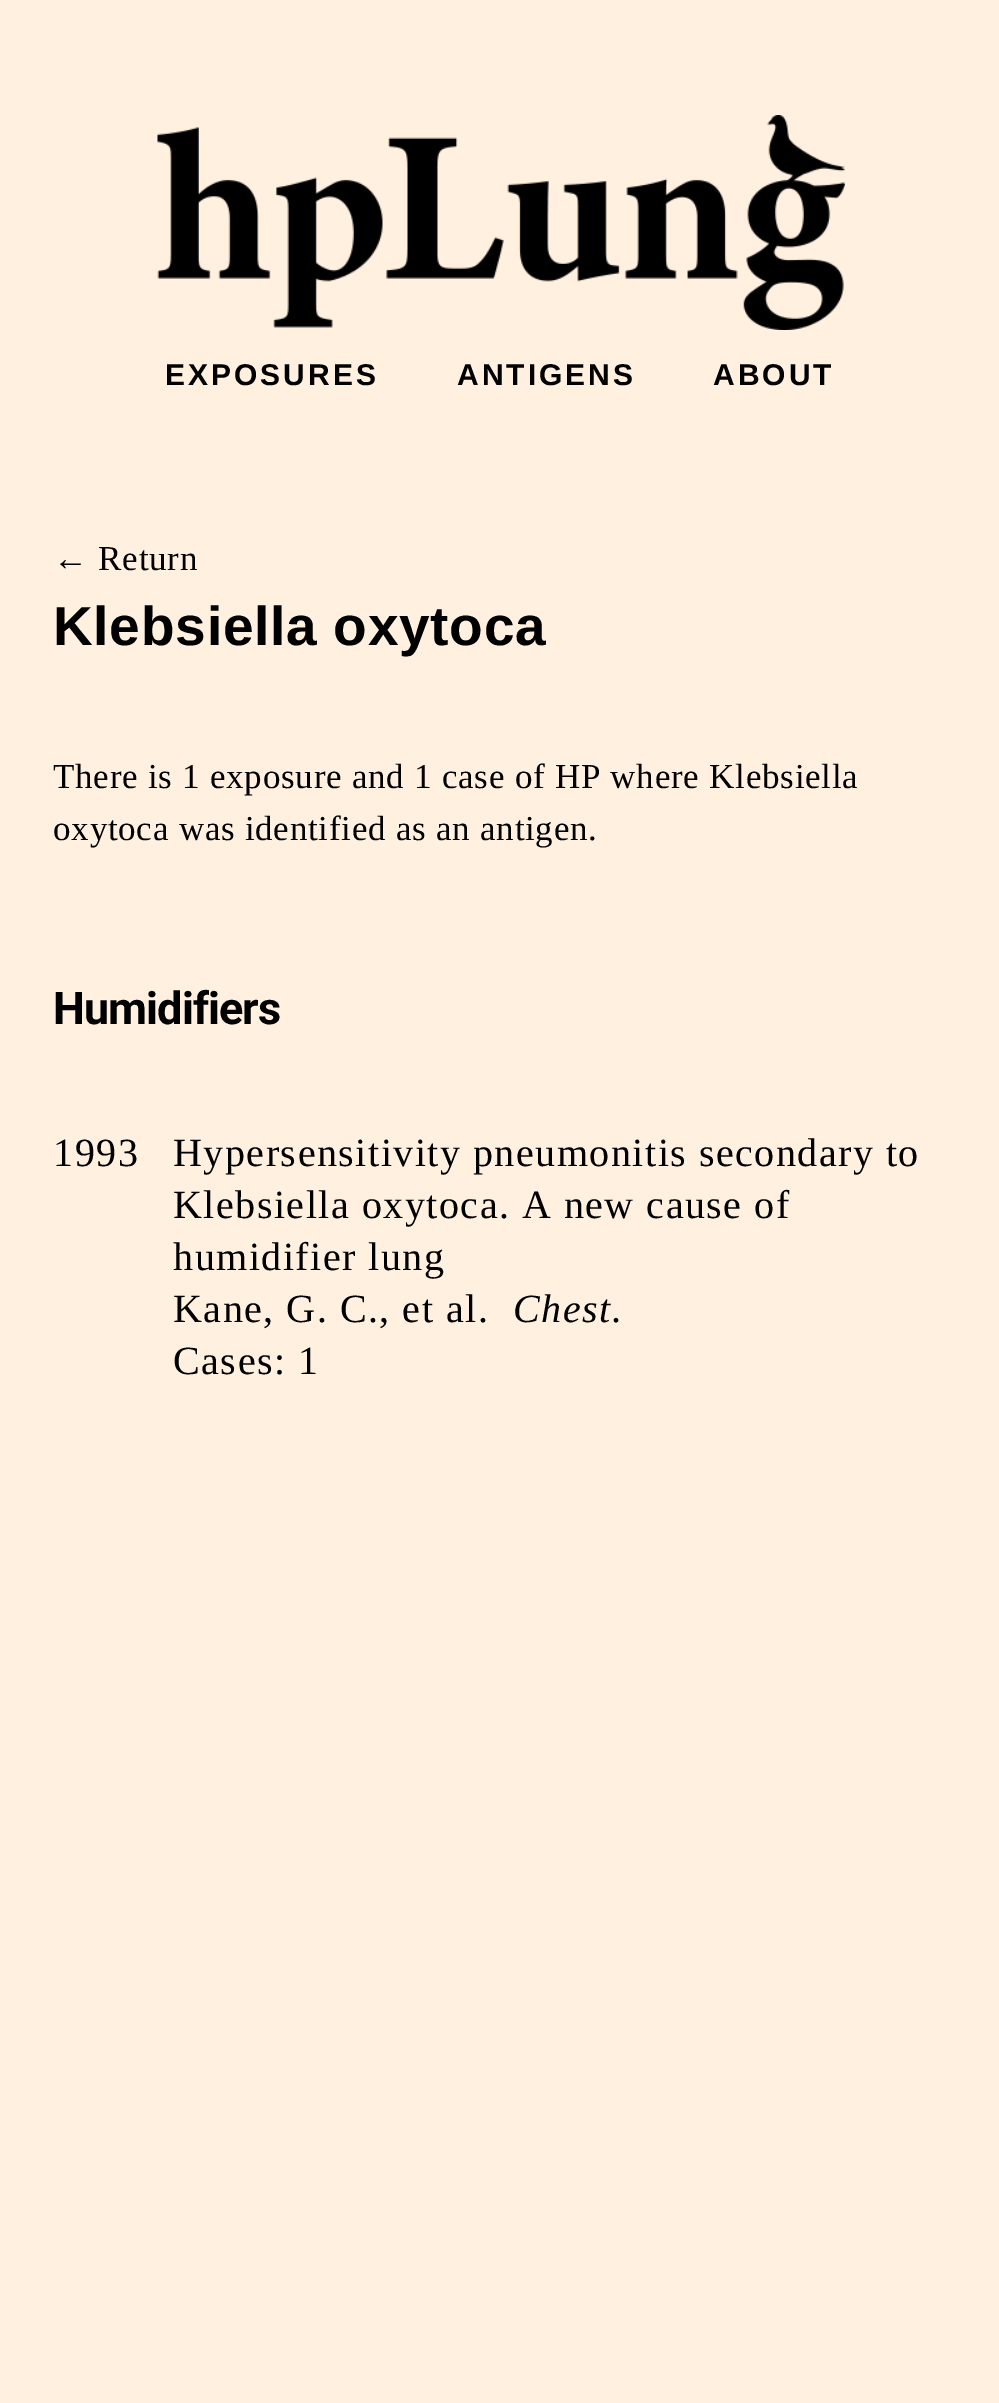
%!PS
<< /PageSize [999 2403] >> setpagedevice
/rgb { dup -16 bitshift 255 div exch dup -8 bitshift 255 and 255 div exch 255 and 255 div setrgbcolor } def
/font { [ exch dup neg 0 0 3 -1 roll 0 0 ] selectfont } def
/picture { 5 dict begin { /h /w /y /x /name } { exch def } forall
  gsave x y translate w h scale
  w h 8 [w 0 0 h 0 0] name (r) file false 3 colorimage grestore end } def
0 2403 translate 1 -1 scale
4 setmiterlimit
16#FFF0E0 rgb
0 0 999 2403 rectfill
(pic1.raw) 157 115 688 215 picture
/LiberationSans-Bold 30 font
16#000000 rgb
165 385 moveto 3 0 (EXPOSURES) ashow
457 385 moveto 3 0 (ANTIGENS) ashow
713 385 moveto 3 0 (ABOUT) ashow
/LiberationSerif-Regular 35 font
53 570 moveto 0.75 0 (← Return) ashow
/LiberationSans-Bold 55 font
53 645 moveto 0.75 0 (Klebsiella oxytoca) ashow
/LiberationSerif-Regular 35 font
53 788 moveto 0.75 0 (There is 1 exposure and 1 case of HP where Klebsiella) ashow
53 840 moveto 0.75 0 (oxytoca was identified as an antigen.) ashow
/Roboto-Bold 45 font
53 1024 moveto -0.9 0 (Humidifiers) ashow
/LiberationSerif-Regular 40 font
53 1166 moveto 1.5 0 (1993) ashow
173 1166 moveto 1.5 0 (Hypersensitivity pneumonitis secondary to) ashow
173 1218 moveto 1.5 0 (Klebsiella oxytoca. A new cause of) ashow
173 1270 moveto 1.5 0 (humidifier lung) ashow
173 1322 moveto 1.5 0 (Kane, G. C., et al.) ashow
/LiberationSerif-Italic 40 font
513 1322 moveto 1.5 0 (Chest.) ashow
/LiberationSerif-Regular 40 font
173 1374 moveto 1.5 0 (Cases: 1) ashow
showpage
